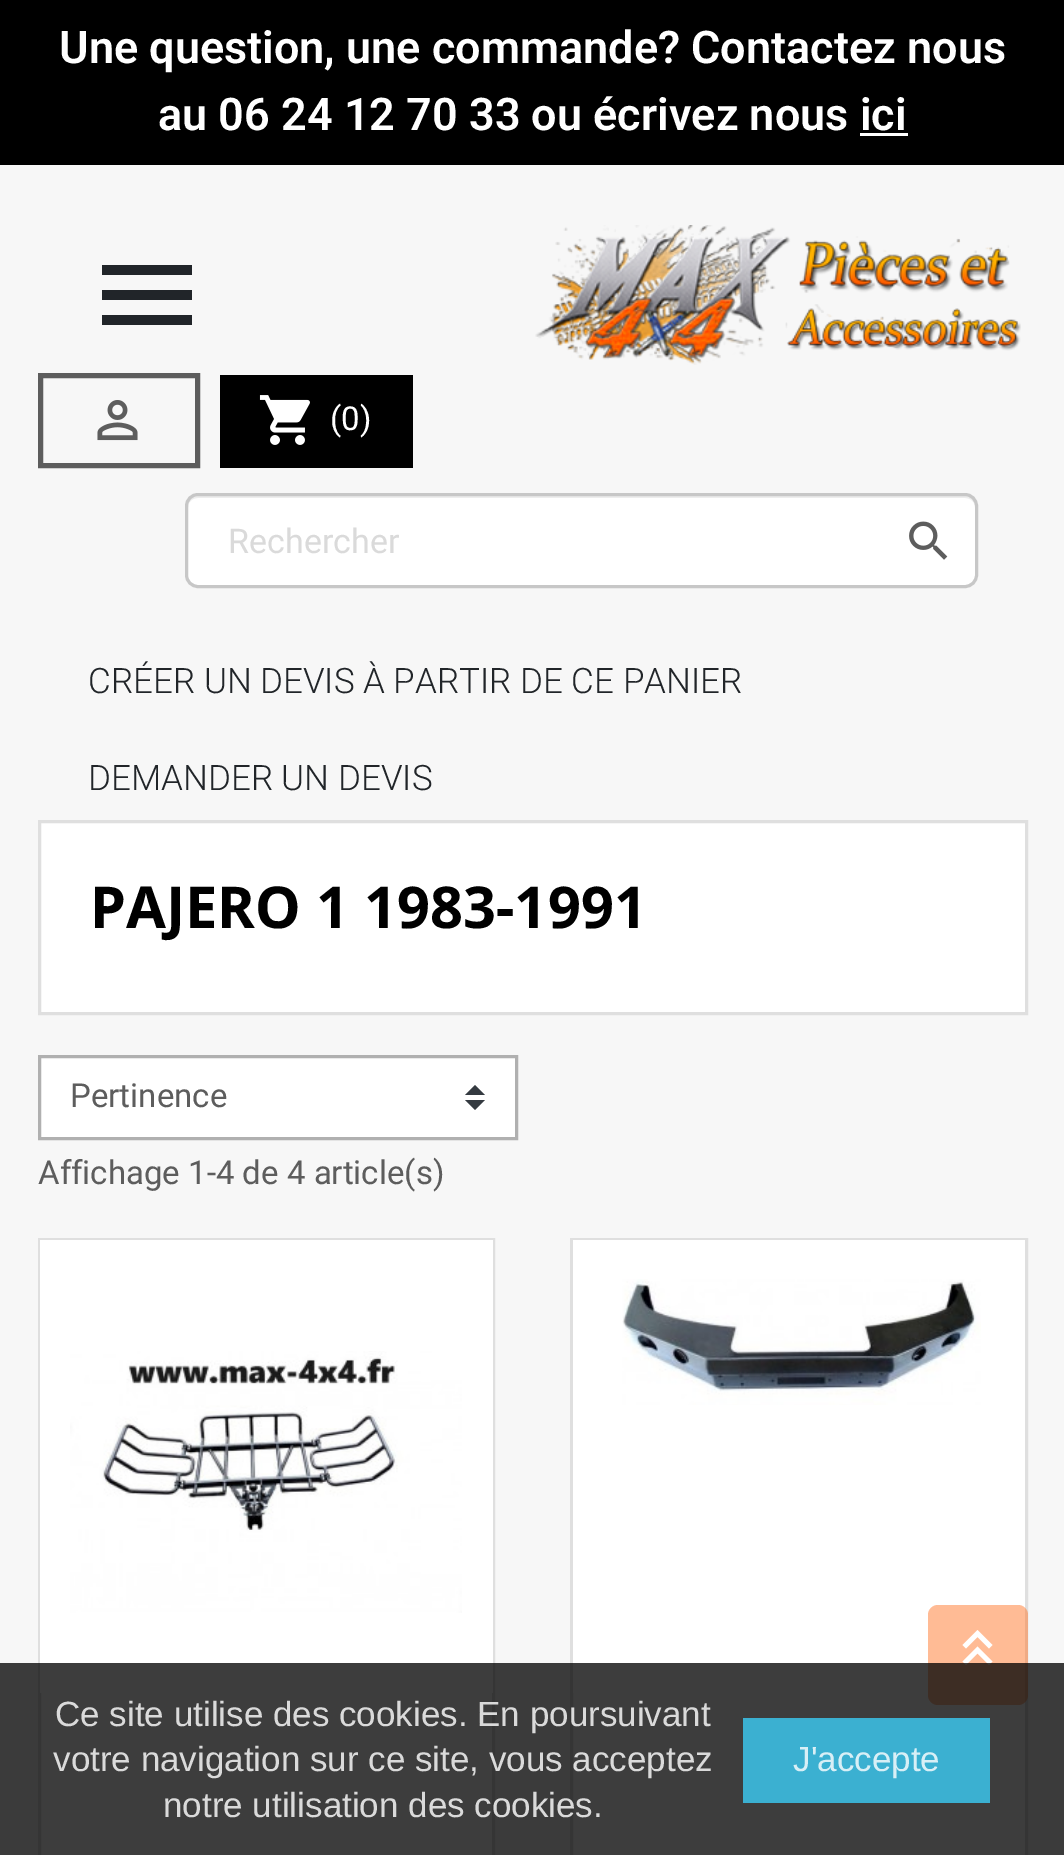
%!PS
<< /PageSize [1064 1855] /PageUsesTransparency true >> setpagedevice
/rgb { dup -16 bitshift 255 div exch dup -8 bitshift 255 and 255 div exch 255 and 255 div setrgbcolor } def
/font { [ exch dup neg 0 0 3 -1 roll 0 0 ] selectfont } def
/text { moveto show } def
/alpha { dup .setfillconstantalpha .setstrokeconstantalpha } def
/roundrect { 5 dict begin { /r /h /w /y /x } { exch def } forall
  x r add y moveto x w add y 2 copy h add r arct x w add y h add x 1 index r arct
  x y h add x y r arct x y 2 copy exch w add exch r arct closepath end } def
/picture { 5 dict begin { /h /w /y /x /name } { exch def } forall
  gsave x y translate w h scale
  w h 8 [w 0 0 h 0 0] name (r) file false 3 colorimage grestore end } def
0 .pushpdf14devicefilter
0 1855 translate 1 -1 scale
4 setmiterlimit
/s1 { /Roboto-SemiBold 45 font 16#FFFFFF rgb } def
/s2 { /Roboto-Regular 33 font 16#FFFFFF rgb } def
/s3 { /Roboto-Regular 34 font 16#DADADA rgb } def
/s4 { /Roboto-Light 35 font 16#212529 rgb } def
/s5 { /NotoSans-Bold 57.75 font 16#000000 rgb } def
/s6 { /Roboto-Regular 33 font 16#5D5D5D rgb } def
/s7 { /LiberationSans-Regular 35 font 16#DADADA rgb } def
/s8 { /LiberationSans-Regular 35 font 16#D8EFF6 rgb } def
16#F7F7F7 rgb
0 0 1064 1855 rectfill
16#000000 rgb
0 0 1064 165 rectfill
s1
(Une question, une commande? Contactez nous) 59 63 text
(au 06 24 12 70 33 ou écrivez nous ici) 158 130 text
860 133 48 3 rectfill
16#212529 rgb
102 265 moveto 192 265 lineto 192 275 lineto 102 275 lineto closepath 102 300 moveto 102 290 lineto 192 290 lineto 192 300 lineto closepath 102 325 moveto 102 315 lineto 192 315 lineto 192 325 lineto closepath fill
(pic1.raw) 535 225 486 140 picture
16#5D5D5D rgb
5 setlinewidth
40.5 375.5 157 90 rectstroke
(pic2.raw) 97 400 41 41 picture
16#000000 rgb
220 375 193 93 rectfill
(pic3.raw) 259 395 51 50 picture
s2
(\(0\)) 330 430 text
188 495 787 90 10 roundrect fill
0.07 alpha
16#000000 rgb
198 498 moveto 965 498 lineto 971 498 975 502 975 508 curveto 975 501 973 495 965 495 curveto 198 495 lineto 190 495 188 501 188 508 curveto 188 502 192 498 198 498 curveto closepath fill
1 alpha
16#C7C7C7 rgb
3 setlinewidth
186.5 494.5 790 92 11.5 roundrect stroke
s3
(Rechercher) 228 553 text
(pic4.raw) 909 521 39 39 picture
s4
(CRÉER UN DEVIS À PARTIR DE CE PANIER) 88 693 text
(DEMANDER UN DEVIS) 88 790 text
16#FFFFFF rgb
39.5 821.5 moveto 1026.5 821.5 lineto 1026.5 1013.5 lineto 39.5 1013.5 lineto closepath gsave fill grestore
16#DFDFDF rgb
stroke
s5
(PAJERO 1 1983-1991) 90 928 text
16#FFFFFF rgb
41 1058 474 79 rectfill
16#343A40 rgb
475 1085 moveto 465 1095 lineto 485 1095 lineto closepath 475 1110 moveto 465 1100 lineto 485 1100 lineto closepath fill
16#B0B0B0 rgb
39.5 1056.5 477 82 rectstroke
s6
(Pertinence) 70 1107 text
(Affichage 1-4 de 4 article\(s\)) 38 1184 text
16#FFFFFF rgb
41 1693 451 162 rectfill
16#DFDFDF rgb
39.5 1239.5 454 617 rectstroke
16#FFFFFF rgb
40 1240 453 453 rectfill
(pic5.raw) 70 1351 392 262 picture
573 1693 452 162 rectfill
16#DFDFDF rgb
571.5 1239.5 455 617 rectstroke
16#FFFFFF rgb
573 1240 452 453 rectfill
(pic6.raw) 622 1279 359 126 picture
0.5 alpha
16#FF782C rgb
928 1605 100 100 10 roundrect fill
1 alpha
16#FFFFFF rgb
962.5 1661.5 moveto 966 1665 lineto 977.5 1653.5 lineto 989 1665 lineto 992.5 1661.5 lineto 977.5 1646.5 lineto closepath 962.5 1645 moveto 966 1648.5 lineto 977.5 1637 lineto 989 1648.5 lineto 992.5 1645 lineto 977.5 1630 lineto closepath fill
0.76 alpha
16#000000 rgb
0 1663 1064 192 rectfill
1 alpha
s7
(Ce site utilise des cookies. En poursuivant) 55 1726 text
(votre navigation sur ce site, vous acceptez) 53 1771 text
(notre utilisation des cookies.) 163 1817 text
0.8 alpha
16#3ACDF6 rgb
743 1718 247 85 rectfill
1 alpha
s8
(J'accepte) 793 1771 text
.poppdf14devicefilter showpage
